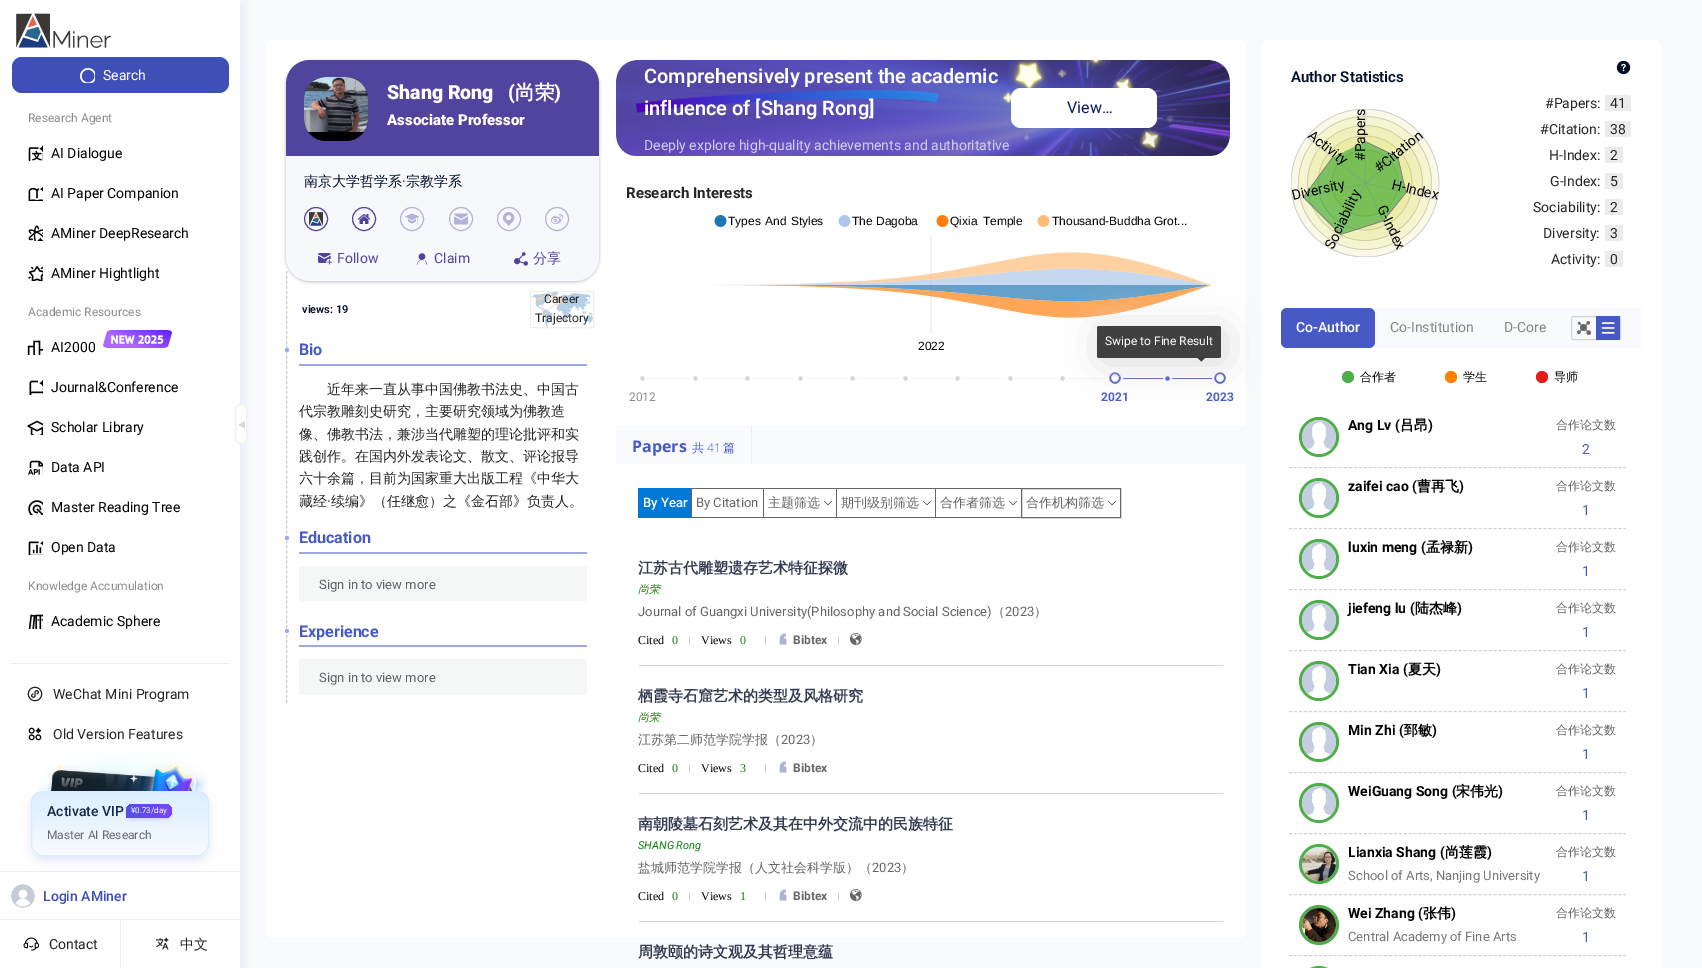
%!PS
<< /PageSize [1702 968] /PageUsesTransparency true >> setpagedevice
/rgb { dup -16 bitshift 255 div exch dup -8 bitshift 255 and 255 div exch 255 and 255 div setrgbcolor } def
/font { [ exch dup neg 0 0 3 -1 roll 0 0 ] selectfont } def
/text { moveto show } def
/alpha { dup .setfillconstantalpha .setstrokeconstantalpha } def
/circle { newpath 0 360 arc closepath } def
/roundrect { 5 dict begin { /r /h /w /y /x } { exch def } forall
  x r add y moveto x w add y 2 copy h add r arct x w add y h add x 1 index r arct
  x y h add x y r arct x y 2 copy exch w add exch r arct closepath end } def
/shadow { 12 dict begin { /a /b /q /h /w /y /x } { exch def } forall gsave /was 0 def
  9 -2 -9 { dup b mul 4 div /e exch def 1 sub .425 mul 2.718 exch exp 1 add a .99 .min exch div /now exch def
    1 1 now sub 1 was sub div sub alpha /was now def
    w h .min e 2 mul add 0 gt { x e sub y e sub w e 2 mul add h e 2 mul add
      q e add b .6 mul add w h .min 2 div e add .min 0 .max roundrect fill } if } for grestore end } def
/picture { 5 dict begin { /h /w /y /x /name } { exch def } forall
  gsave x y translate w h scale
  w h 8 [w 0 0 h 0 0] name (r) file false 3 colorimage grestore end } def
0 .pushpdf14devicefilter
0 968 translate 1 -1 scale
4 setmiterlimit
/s1 { /Roboto-Regular 14 font 16#FFFFFF rgb } def
/s2 { /Roboto-Regular 12 font 16#8C8C8C rgb } def
/s3 { /Roboto-Regular 14 font 16#000000 rgb } def
/s4 { /Roboto-Regular 14 font 16#262626 rgb } def
/s5 { /Roboto-Medium 14 font 16#162B4C rgb } def
/s6 { /Roboto-Regular 8 font 16#FFFFFF rgb } def
/s7 { /Roboto-Regular 12 font 16#686772 rgb } def
/s8 { /Roboto-Medium 14 font 16#3E4FB8 rgb } def
/s9 { /WenQuanYiZenHei-Medium 14 font 16#262626 rgb } def
/s10 { /Roboto-Black 19.5 font 16#FFFFFF rgb } def
/s11 { /WenQuanYiZenHei-Bold 19.5 font 16#FFFFFF rgb } def
/s12 { /Roboto-Black 15 font 16#FFFFFF rgb } def
/s13 { /WenQuanYiZenHei-Medium 14 font 16#000E28 rgb } def
/s14 { /Roboto-Regular 14 font 16#000E28 rgb } def
/s15 { /Roboto-Regular 14 font 16#51449E rgb } def
/s16 { /WenQuanYiZenHei-Medium 14 font 16#51449E rgb } def
/s17 { /Roboto-SemiBold 11 font 16#000E28 rgb } def
/s18 { /Roboto-Regular 12 font 16#202122 rgb } def
/s19 { /Roboto-Regular 12 font 16#262626 rgb } def
/s20 { /Roboto-Bold 16 font 16#4759C5 rgb } def
/s21 { /Roboto-Regular 13 font 16#5F6368 rgb } def
/s22 { /Roboto-SemiBold 20 font 16#FFFFFF rgb } def
/s23 { /Roboto-Regular 14 font 16#D1CCEC rgb } def
/s24 { /Roboto-Regular 16 font 16#08185D rgb } def
/s25 { /Roboto-Bold 15 font 16#262626 rgb } def
/s26 { /LiberationSans-Regular 12 font 16#000000 rgb } def
/s27 { /Roboto-Bold 12 font 16#4759C5 rgb } def
/s28 { /OpenSans-Bold 16 font 16#4759C5 rgb } def
/s29 { /WenQuanYiZenHei-Medium 12 font 16#4759C5 rgb } def
/s30 { /OpenSans-Light 12 font 16#4759C5 rgb } def
/s31 { /Roboto-Medium 13 font 16#FFFFFF rgb } def
/s32 { /Roboto-Regular 13 font 16#666666 rgb } def
/s33 { /WenQuanYiZenHei-Medium 13 font 16#666666 rgb } def
/s34 { /WenQuanYiZenHei-Bold 15 font 16#343C52 rgb } def
/s35 { /WenQuanYiZenHei-MediumItalic 11 font 16#0B7F0D rgb } def
/s36 { /LiberationSerif-Regular 12 font 16#000000 rgb } def
/s37 { /LiberationSerif-Regular 12 font 16#0B7F0D rgb } def
/s38 { /Roboto-Regular 12 font 16#D5D5D5 rgb } def
/s39 { /Roboto-Bold 12 font 16#D5D5D5 rgb } def
/s40 { /Roboto-Bold 12 font 16#666666 rgb } def
/s41 { /Roboto-Italic 11 font 16#0B7F0D rgb } def
/s42 { /Roboto-SemiBold 15 font 16#000E28 rgb } def
/s43 { /Roboto-Medium 14 font 16#FFFFFF rgb } def
/s44 { /Roboto-Regular 14 font 16#868686 rgb } def
/s45 { /WenQuanYiZenHei-Medium 12 font 16#000000 rgb } def
/s46 { /Roboto-Bold 14 font 16#000000 rgb } def
/s47 { /WenQuanYiZenHei-Bold 14 font 16#000000 rgb } def
/s48 { /WenQuanYiZenHei-Medium 12 font 16#666666 rgb } def
/s49 { /Roboto-Regular 14 font 16#4759C5 rgb } def
/s50 { /Roboto-Regular 13 font 16#777777 rgb } def
/s51 { /Roboto-Regular 12 font 16#FFFFFF rgb } def
16#FFFFFF rgb
0 0 1702 968 rectfill
16#F9FAFD rgb
240 0 1462 968 rectfill
gsave
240 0 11 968 rectclip
16#CCCFE7 rgb
2 4 240 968 0 5 0.5 shadow
grestore
(pic1.raw) 16 13 95 35 picture
16#3E4FB8 rgb
12 57 217 36 10 roundrect fill
(pic2.raw) 80 68 15 15 picture
s1
(Search) 103 80 text
s2
(Research Agent) 28 122 text
(pic3.raw) 28 145 15 16 picture
s3
(AI Dialogue) 51 158 text
(pic4.raw) 28 186 15 15 picture
(AI Paper Companion) 51 198 text
(pic5.raw) 28 225 15 16 picture
(AMiner DeepResearch) 51 238 text
(pic6.raw) 28 266 15 15 picture
(AMiner Hightlight) 51 278 text
s2
(Academic Resources) 28 316 text
(pic7.raw) 27 340 16 15 picture
s3
(AI2000) 51 352 text
(pic8.raw) 103 330 69 18 picture
(pic9.raw) 29 379 14 16 picture
(Journal&Conference) 51 392 text
(pic10.raw) 27 420 16 15 picture
(Scholar Library) 51 432 text
(pic11.raw) 28 460 15 15 picture
(Data API) 51 472 text
(pic12.raw) 28 500 15 15 picture
(Master Reading Tree) 51 512 text
(pic13.raw) 28 540 15 15 picture
(Open Data) 51 552 text
s2
(Knowledge Accumulation) 28 590 text
(pic14.raw) 28 614 15 15 picture
s3
(Academic Sphere) 51 626 text
16#FFFFFF rgb
235.5 404.5 11 39 5.5 roundrect gsave fill grestore
16#EEEEEE rgb
stroke
(pic15.raw) 239 421 6 7 picture
10 663 220 1 rectfill
(pic16.raw) 27 686 16 16 picture
s4
(WeChat Mini Program) 53 699 text
(pic17.raw) 28 727 14 14 picture
(Old Version Features) 53 739 text
(pic18.raw) 39 752 169 43 picture
16#0B4DB2 rgb
31 795 178 65 12 5 0.14 shadow
gsave
31 791 178 65 12 roundrect clip newpath
gsave 31 792 moveto 209 792 lineto 209 855 lineto 31 855 lineto closepath clip newpath
<< /ShadingType 2 /ColorSpace /DeviceRGB /Coords [120 792 120 855] /Extend [true true] /Function << /FunctionType 2 /Domain [0 1] /C0 [0.863 0.937 1] /C1 [0.973 0.98 1] /N 1 >> >> shfill grestore
grestore
16#D8EBFF rgb
31.5 791.5 177 64 11.5 roundrect stroke
s5
(Activate VIP) 47 816 text
16#4E48FE rgb
126 806 46 14 7 1.5 0.14 shadow
gsave 133 804 moveto 165 804 lineto 169 804 172 807 172 811 curveto 172 815 169 818 165 818 curveto 127.5 818 lineto 126.5 818 126 817.5 126 816.5 curveto 126 811 lineto 126 807 129 804 133 804 curveto closepath clip newpath
<< /ShadingType 2 /ColorSpace /DeviceRGB /Coords [126 811 172 811] /Extend [true true] /Function << /FunctionType 2 /Domain [0 1] /C0 [0.322 0.314 0.894] /C1 [0.478 0.267 1] /N 1 >> >> shfill grestore
s6
(¥0.73/day) 131 813 text
s7
(Master AI Research) 47 839 text
16#EEEEEE rgb
0 871 240 1 rectfill
0 919 240 1 rectfill
(pic19.raw) 11 884 24 24 picture
s8
(Login AMiner) 43 901 text
16#EEEEEE rgb
120 920 1 48 rectfill
(pic20.raw) 23 937 17 14 picture
s4
(Contact) 49 949 text
(pic21.raw) 156 937 13 13 picture
s9
(中文) 180 949 text
16#FFFFFF rgb
274 40 moveto 616 40 lineto 616 938 lineto 274 938 lineto 269.5 938 266 934.5 266 930 curveto 266 48 lineto 266 43.5 269.5 40 274 40 curveto closepath fill
16#CCCCCC rgb
[3 1.99] 0 setdash
286.5 271 moveto 286.5 703 lineto stroke
16#9E9EA7 rgb
286 61 313 221 24 1.5 0.7 shadow
16#F7F8FC rgb
286 60 313 221 24 roundrect fill
16#51449E rgb
310 60 moveto 575 60 lineto 588.5 60 599 70.5 599 84 curveto 599 156 lineto 286 156 lineto 286 84 lineto 286 70.5 296.5 60 310 60 curveto closepath fill
16#000000 rgb
304 77 64 64 22 roundrect fill
(pic22.raw) 304 77 64 55 picture
s10
(Shang Rong) 387 99 text
(\() 508 99 text
s11
(尚荣) 515 99 text
s10
(\)) 554 99 text
s12
(Associate Professor) 387 125 text
s13
(南京大学哲学系) 304 186 text
s14
(·) 402 186 text
s13
(宗教学系) 406 186 text
16#51449E rgb
[] 0 setdash
316 219 11.5 circle stroke
(pic23.raw) 309 212 14 14 picture
364 219 11.5 circle stroke
(pic24.raw) 357 214 14 10 picture
16#B5B0D6 rgb
412 219 11.5 circle stroke
(pic25.raw) 405 213 14 12 picture
461 219 11.5 circle stroke
(pic26.raw) 454 213 14 12 picture
509 219 11.5 circle stroke
(pic27.raw) 502 212 13 14 picture
557 219 11.5 circle stroke
(pic28.raw) 550 214 14 10 picture
(pic29.raw) 318 253 14 12 picture
s15
(Follow) 337 263 text
(pic30.raw) 416 253 12 12 picture
(Claim) 434 263 text
(pic31.raw) 514 252 14 14 picture
s16
(分享) 533 263 text
s17
(views: 19) 302 313 text
16#EEEDED rgb
530.5 291.5 63 36 rectstroke
(pic32.raw) 531 292 62 35 picture
s18
(Career) 544 303 text
s19
(Trajectory) 535 322 text
16#9DA8EB rgb
299 364 288 2 rectfill
287 350 2 circle fill
s20
(Bio) 299 355 text
s9
(近年来一直从事中国佛教书法史、中国古) 327 394 text
(代宗教雕刻史研究，主要研究领域为佛教造) 299 416 text
(像、佛教书法，兼涉当代雕塑的理论批评和实) 299 439 text
(践创作。在国内外发表论文、散文、评论报导) 299 461 text
(六十余篇，目前为国家重大出版工程《中华大) 299 483 text
(藏经) 299 506 text
s4
(·) 327 506 text
gsave
299 378 288 130 rectclip
s9
(续编》（任继愈）之《金石部》负责人。) 331 506 text
grestore
16#9DA8EB rgb
299 552 288 2 rectfill
287 538 2 circle fill
s20
(Education) 299 543 text
16#F5F7F7 rgb
299 566 288 35 rectfill
s21
(Sign in to view more) 319 589 text
16#9DA8EB rgb
299 645 288 2 rectfill
287 631 2 circle fill
s20
(Experience) 299 637 text
16#F5F7F7 rgb
299 659 288 36 rectfill
s21
(Sign in to view more) 319 682 text
16#FFFFFF rgb
616 40 moveto 1238 40 lineto 1242.5 40 1246 43.5 1246 48 curveto 1246 930 lineto 1246 934.5 1242.5 938 1238 938 curveto 616 938 lineto closepath fill
(pic33.raw) 616 60 614 96 picture
s22
(Comprehensively present the academic) 644 83 text
(pic34.raw) 636 90 303 23 picture
(influence of [Shang Rong]) 644 115 text
s23
(Deeply explore high-quality achievements and authoritative) 644 150 text
16#FFFFFF rgb
1011 88 146 40 10 roundrect fill
s24
(View…) 1067 113 text
s25
(Research Interests) 626 198 text
(pic35.raw) 709 215 502 119 picture
/LiberationSans-Regular 12 font
16#000000 rgb
728 225 moveto 1 0 32 (Types And Styles) widthshow
(The Dagoba) 852 225 text
950 225 moveto 2 0 32 (Qixia Temple) widthshow
(Thousand-Buddha Grot...) 1052 225 text
(2022) 918 350 text
16#4759C5 rgb
1115 378 105 1 rectfill
16#FFFFFF rgb
1115 378 5.5 circle gsave fill grestore
16#4759C5 rgb
3 setlinewidth
stroke
16#F5F5F5 rgb
642 378 466 1 rectfill
16#FFFFFF rgb
2 setlinewidth
1115 378 7 circle stroke
1220 378 5.5 circle gsave fill grestore
16#4759C5 rgb
3 setlinewidth
stroke
16#FFFFFF rgb
2 setlinewidth
1220 378 7 circle stroke
16#D5D5D5 rgb
642.5 378.5 3.5 circle gsave fill grestore
16#FFFFFF rgb
stroke
16#D5D5D5 rgb
695.5 378.5 3.5 circle gsave fill grestore
16#FFFFFF rgb
stroke
16#D5D5D5 rgb
747.5 378.5 3.5 circle gsave fill grestore
16#FFFFFF rgb
stroke
16#D5D5D5 rgb
800.5 378.5 3.5 circle gsave fill grestore
16#FFFFFF rgb
stroke
16#D5D5D5 rgb
852.5 378.5 3.5 circle gsave fill grestore
16#FFFFFF rgb
stroke
16#D5D5D5 rgb
905.5 378.5 3.5 circle gsave fill grestore
16#FFFFFF rgb
stroke
16#D5D5D5 rgb
957.5 378.5 3.5 circle gsave fill grestore
16#FFFFFF rgb
stroke
16#D5D5D5 rgb
1010.5 378.5 3.5 circle gsave fill grestore
16#FFFFFF rgb
stroke
16#D5D5D5 rgb
1062.5 378.5 3.5 circle gsave fill grestore
16#FFFFFF rgb
stroke
16#4759C5 rgb
1167.5 378.5 3.5 circle gsave fill grestore
16#FFFFFF rgb
stroke
s2
(2012) 629 401 text
s27
(2021) 1101 401 text
(2023) 1206 401 text
16#F8FAFD rgb
616 426 630 38 rectfill
16#EEEEEE rgb
751 426 1 38 rectfill
s28
(Papers) 632 452 text
s29
(共) 692 452 text
s30
(41) 707 452 text
s29
(篇) 723 452 text
16#0078D7 rgb
638 488 53 30 rectfill
s31
(By Year) 643 507 text
16#666666 rgb
691 488 330 1 rectfill
691 517 330 1 rectfill
691 488 1 30 rectfill
s32
(By Citation) 696 507 text
763 488 1 30 rectfill
s33
(主题筛选) 768 507 text
(pic36.raw) 824 501 8 5 picture
836 488 1 30 rectfill
(期刊级别筛选) 841 507 text
(pic36.raw) 923 501 8 5 picture
935 488 1 30 rectfill
(合作者筛选) 940 507 text
(pic36.raw) 1009 501 8 5 picture
1 setlinewidth
1021.5 488.5 99 29 rectstroke
(合作机构筛选) 1026 507 text
(pic36.raw) 1108 501 8 5 picture
16#D5D5D5 rgb
639 665 584 1 rectfill
s34
(江苏古代雕塑遗存艺术特征探微) 638 573 text
s35
(尚荣) 638 593 text
s32
(Journal of Guangxi University\(Philosophy and Social Science\)) 638 616 text
s33
(（) 992 616 text
s32
(2023) 1005 616 text
s33
(）) 1034 616 text
s36
(Cited) 638 644 text
s37
(0) 672 644 text
s38
(|) 688 644 text
s36
(Views) 701 644 text
s37
(0) 740 644 text
s39
(|) 764 644 text
(pic37.raw) 779 633 8 12 picture
s40
(Bibtex) 793 644 text
s38
(|) 837 644 text
(pic38.raw) 850 633 12 12 picture
639 793 584 1 rectfill
s34
(栖霞寺石窟艺术的类型及风格研究) 638 701 text
s35
(尚荣) 638 721 text
s33
(江苏第二师范学院学报（) 638 744 text
s32
(2023) 781 744 text
s33
(）) 810 744 text
s36
(Cited) 638 772 text
s37
(0) 672 772 text
s38
(|) 688 772 text
s36
(Views) 701 772 text
s37
(3) 740 772 text
s39
(|) 764 772 text
(pic37.raw) 779 761 8 12 picture
s40
(Bibtex) 793 772 text
16#D5D5D5 rgb
639 921 584 1 rectfill
s34
(南朝陵墓石刻艺术及其在中外交流中的民族特征) 638 829 text
s41
(SHANG Rong) 638 849 text
s33
(盐城师范学院学报（人文社会科学版）（) 638 872 text
s32
(2023) 872 872 text
s33
(）) 901 872 text
s36
(Cited) 638 900 text
s37
(0) 672 900 text
s38
(|) 688 900 text
s36
(Views) 701 900 text
s37
(1) 740 900 text
s39
(|) 764 900 text
(pic37.raw) 779 889 8 12 picture
s40
(Bibtex) 793 900 text
s38
(|) 837 900 text
(pic38.raw) 850 889 12 12 picture
s34
(周敦颐的诗文观及其哲理意蕴) 638 957 text
16#FFFFFF rgb
1269 40 moveto 1653 40 lineto 1657.5 40 1661 43.5 1661 48 curveto 1661 968 lineto 1261 968 lineto 1261 48 lineto 1261 43.5 1264.5 40 1269 40 curveto closepath fill
(pic39.raw) 1616 60 15 15 picture
s42
(Author Statistics) 1291 82 text
(pic40.raw) 1291 109 149 148 picture
/Roboto-Regular 14 font
16#000000 rgb
gsave 1307 137 translate 38.6 rotate 0 0 moveto (Activity) show grestore
gsave 1365 161 translate -90 rotate 0 0 moveto (#Papers) show grestore
gsave 1379 173 translate -38.6 rotate 0 0 moveto (#Citation) show grestore
gsave 1333 250 translate -64.3 rotate 0 0 moveto (Sociability) show grestore
gsave 1293 200 translate -12.9 rotate 0 0 moveto (Diversity) show grestore
gsave 1377 208 translate 64.3 rotate 0 0 moveto (G-Index) show grestore
gsave 1391 189 translate 12.9 rotate 0 0 moveto (H-Index) show grestore
s4
(#Papers:) 1545 108 text
16#EBEBEB rgb
1605 95 26 16 rectfill
s4
(41) 1610 108 text
(#Citation:) 1540 134 text
16#EBEBEB rgb
1605 121 26 16 rectfill
s4
(38) 1610 134 text
(H-Index:) 1549 160 text
16#EBEBEB rgb
1605 147 18 16 rectfill
s4
(2) 1610 160 text
(G-Index:) 1550 186 text
16#EBEBEB rgb
1605 173 18 16 rectfill
s4
(5) 1610 186 text
(Sociability:) 1533 212 text
16#EBEBEB rgb
1605 199 18 16 rectfill
s4
(2) 1610 212 text
(Diversity:) 1543 238 text
16#EBEBEB rgb
1605 225 18 16 rectfill
s4
(3) 1610 238 text
(Activity:) 1551 264 text
16#EBEBEB rgb
1605 251 18 16 rectfill
s4
(0) 1610 264 text
16#F8FAFD rgb
1281 308 360 40 rectfill
16#4759C5 rgb
1281 308 94 40 6 roundrect fill
s43
(Co-Author) 1296 332 text
s44
(Co-Institution) 1390 332 text
(D-Core) 1504 332 text
16#D4D4D4 rgb
1571.5 316.5 49 23 1.5 roundrect stroke
(pic41.raw) 1577 321 14 14 picture
16#4759C5 rgb
1596 316 24 24 rectfill
(pic42.raw) 1601 322 14 12 picture
16#4EAF4A rgb
1348 377 6 circle fill
s45
(合作者) 1360 381 text
16#FF7F02 rgb
1451 377 6 circle fill
s45
(学生) 1463 381 text
16#E51A1B rgb
1542 377 6 circle fill
s45
(导师) 1554 381 text
16#D4D4D4 rgb
[3 1.99] 0 setdash
1289 467.5 moveto 1626 467.5 lineto stroke
16#4EAF4A rgb
1319 437 20 circle fill
16#E5E5E5 rgb
1319 437 17 circle fill
(pic43.raw) 1302 420 34 34 picture
s46
(Ang Lv \() 1348 430 text
s47
(吕昂) 1400 430 text
s46
(\)) 1428 430 text
s48
(合作论文数) 1556 429 text
s49
(2) 1582 454 text
16#D4D4D4 rgb
1289 528.5 moveto 1626 528.5 lineto stroke
16#4EAF4A rgb
1319 498 20 circle fill
16#E5E5E5 rgb
1319 498 17 circle fill
(pic43.raw) 1302 481 34 34 picture
s46
(zaifei cao \() 1348 491 text
s47
(曹再飞) 1417 491 text
s46
(\)) 1459 491 text
s48
(合作论文数) 1556 490 text
s49
(1) 1582 515 text
16#D4D4D4 rgb
1289 589.5 moveto 1626 589.5 lineto stroke
16#4EAF4A rgb
1319 559 20 circle fill
16#E5E5E5 rgb
1319 559 17 circle fill
(pic43.raw) 1302 542 34 34 picture
s46
(luxin meng \() 1348 552 text
s47
(孟禄新) 1426 552 text
s46
(\)) 1468 552 text
s48
(合作论文数) 1556 551 text
s49
(1) 1582 576 text
16#D4D4D4 rgb
1289 650.5 moveto 1626 650.5 lineto stroke
16#4EAF4A rgb
1319 620 20 circle fill
16#E5E5E5 rgb
1319 620 17 circle fill
(pic43.raw) 1302 603 34 34 picture
s46
(jiefeng lu \() 1348 613 text
s47
(陆杰峰) 1415 613 text
s46
(\)) 1457 613 text
s48
(合作论文数) 1556 612 text
s49
(1) 1582 637 text
16#D4D4D4 rgb
1289 711.5 moveto 1626 711.5 lineto stroke
16#4EAF4A rgb
1319 681 20 circle fill
16#E5E5E5 rgb
1319 681 17 circle fill
(pic43.raw) 1302 664 34 34 picture
s46
(Tian Xia \() 1348 674 text
s47
(夏天) 1408 674 text
s46
(\)) 1436 674 text
s48
(合作论文数) 1556 673 text
s49
(1) 1582 698 text
16#D4D4D4 rgb
1289 772.5 moveto 1626 772.5 lineto stroke
16#4EAF4A rgb
1319 742 20 circle fill
16#E5E5E5 rgb
1319 742 17 circle fill
(pic43.raw) 1302 725 34 34 picture
s46
(Min Zhi \() 1348 735 text
s47
(郅敏) 1404 735 text
s46
(\)) 1432 735 text
s48
(合作论文数) 1556 734 text
s49
(1) 1582 759 text
16#D4D4D4 rgb
1289 833.5 moveto 1626 833.5 lineto stroke
16#4EAF4A rgb
1319 803 20 circle fill
16#E5E5E5 rgb
1319 803 17 circle fill
(pic43.raw) 1302 786 34 34 picture
s46
(WeiGuang Song \() 1348 796 text
s47
(宋伟光) 1456 796 text
s46
(\)) 1498 796 text
s48
(合作论文数) 1556 795 text
s49
(1) 1582 820 text
16#D4D4D4 rgb
1289 894.5 moveto 1626 894.5 lineto stroke
16#4EAF4A rgb
1319 864 20 circle fill
16#E5E5E5 rgb
1319 864 17 circle fill
(pic44.raw) 1302 847 34 34 picture
s46
(Lianxia Shang \() 1348 857 text
s47
(尚莲霞) 1445 857 text
s46
(\)) 1487 857 text
s48
(合作论文数) 1556 856 text
s50
(School of Arts, Nanjing University) 1348 880 text
s49
(1) 1582 881 text
16#D4D4D4 rgb
1289 955.5 moveto 1626 955.5 lineto stroke
16#4EAF4A rgb
1319 925 20 circle fill
16#E5E5E5 rgb
1319 925 17 circle fill
(pic45.raw) 1302 908 34 34 picture
s46
(Wei Zhang \() 1348 918 text
s47
(张伟) 1423 918 text
s46
(\)) 1451 918 text
s48
(合作论文数) 1556 917 text
s50
(Central Academy of Fine Arts) 1348 941 text
s49
(1) 1582 942 text
16#4EAF4A rgb
1319 966 moveto 1330 966 1339 975 1339 986 curveto 1339 968 lineto 1299 968 lineto 1299 986 lineto 1299 975 1308 966 1319 966 curveto closepath fill
16#D8D8D8 rgb
1101 330 124 32 2 20 1 shadow
16#404040 rgb
1097 326 124 32 2 roundrect fill
s51
(Swipe to Fine Result) 1105 345 text
gsave
1195 358 13 13 rectclip
16#3C3C3C rgb
1201.5 354.5 moveto 1205 358 lineto 1201.5 361.5 lineto 1197.5 358 lineto closepath fill
grestore
.poppdf14devicefilter showpage
